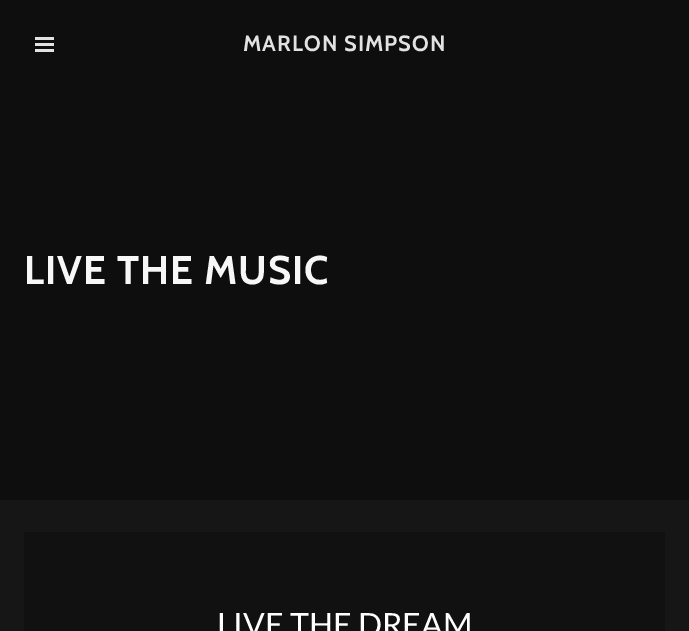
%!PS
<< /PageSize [689 631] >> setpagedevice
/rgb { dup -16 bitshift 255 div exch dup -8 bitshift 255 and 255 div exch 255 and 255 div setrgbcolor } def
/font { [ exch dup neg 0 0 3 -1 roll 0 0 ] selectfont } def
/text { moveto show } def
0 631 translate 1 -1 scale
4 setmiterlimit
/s1 { /Lato-Regular 32 font 16#FFFFFF rgb } def
16#161616 rgb
0 0 689 631 rectfill
16#0E0E0E rgb
0 0 689 500 rectfill
16#E2E2E2 rgb
35 37 19 3 rectfill
35 43 19 3 rectfill
35 49 19 3 rectfill
/Cabin-Bold 22 font
243 51 moveto 1 0 (MARLON SIMPSON) ashow
/Cabin-Bold 40 font
16#F7F7F7 rgb
24 284 moveto 1 0 (LIVE THE MUSIC) ashow
16#111111 rgb
24 532 641 99 rectfill
s1
(LIVE THE DREAM) 217 636 text
showpage
